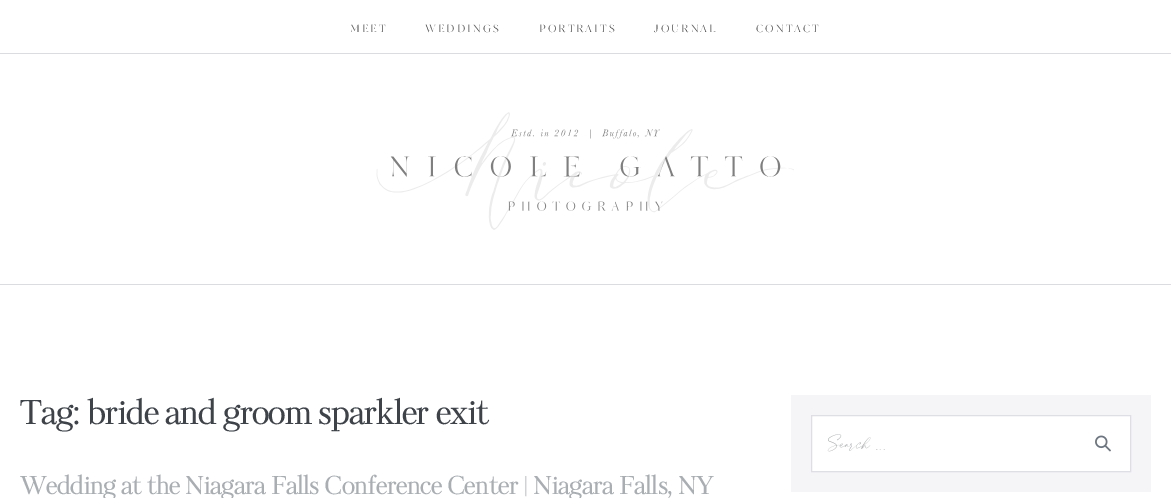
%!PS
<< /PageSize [1171 498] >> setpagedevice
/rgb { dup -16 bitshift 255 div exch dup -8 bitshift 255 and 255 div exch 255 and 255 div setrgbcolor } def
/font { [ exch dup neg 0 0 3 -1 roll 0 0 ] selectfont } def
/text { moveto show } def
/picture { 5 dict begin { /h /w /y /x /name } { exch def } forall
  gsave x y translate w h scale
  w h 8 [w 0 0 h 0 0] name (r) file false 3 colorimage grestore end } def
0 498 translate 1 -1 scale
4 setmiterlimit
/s1 { /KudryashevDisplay-Bold 32 font 16#3E4349 rgb } def
/s2 { /KudryashevDisplay-Bold 24 font 16#A9AEB2 rgb } def
16#FFFFFF rgb
0 0 1171 498 rectfill
16#DADCDF rgb
0 53 1171 1 rectfill
/KudryashevDisplay-Regular 10 font
16#4C4C4C rgb
350 32 moveto 2 0 (MEET) ashow
425 32 moveto 2 0 (WEDDINGS) ashow
539 32 moveto 2 0 (PORTRAITS) ashow
654 32 moveto 2 0 (JOURNAL) ashow
756 32 moveto 2 0 (CONTACT) ashow
16#DADCDF rgb
0 284 1171 1 rectfill
(pic1.raw) 376 112 418 118 picture
s1
(Tag: bride and groom sparkler exit) 20 424 text
s2
(Wedding at the Niagara Falls Conference Center | Niagara Falls, NY) 20 494 text
16#F5F5F7 rgb
791 395 360 97 rectfill
16#FFFFFF rgb
811.5 415.5 moveto 1130.5 415.5 lineto 1130.5 471.5 lineto 811.5 471.5 lineto closepath gsave fill grestore
16#DEDEE5 rgb
stroke
(pic2.raw) 827 434 58 18 picture
(pic3.raw) 1095 435 16 17 picture
showpage
